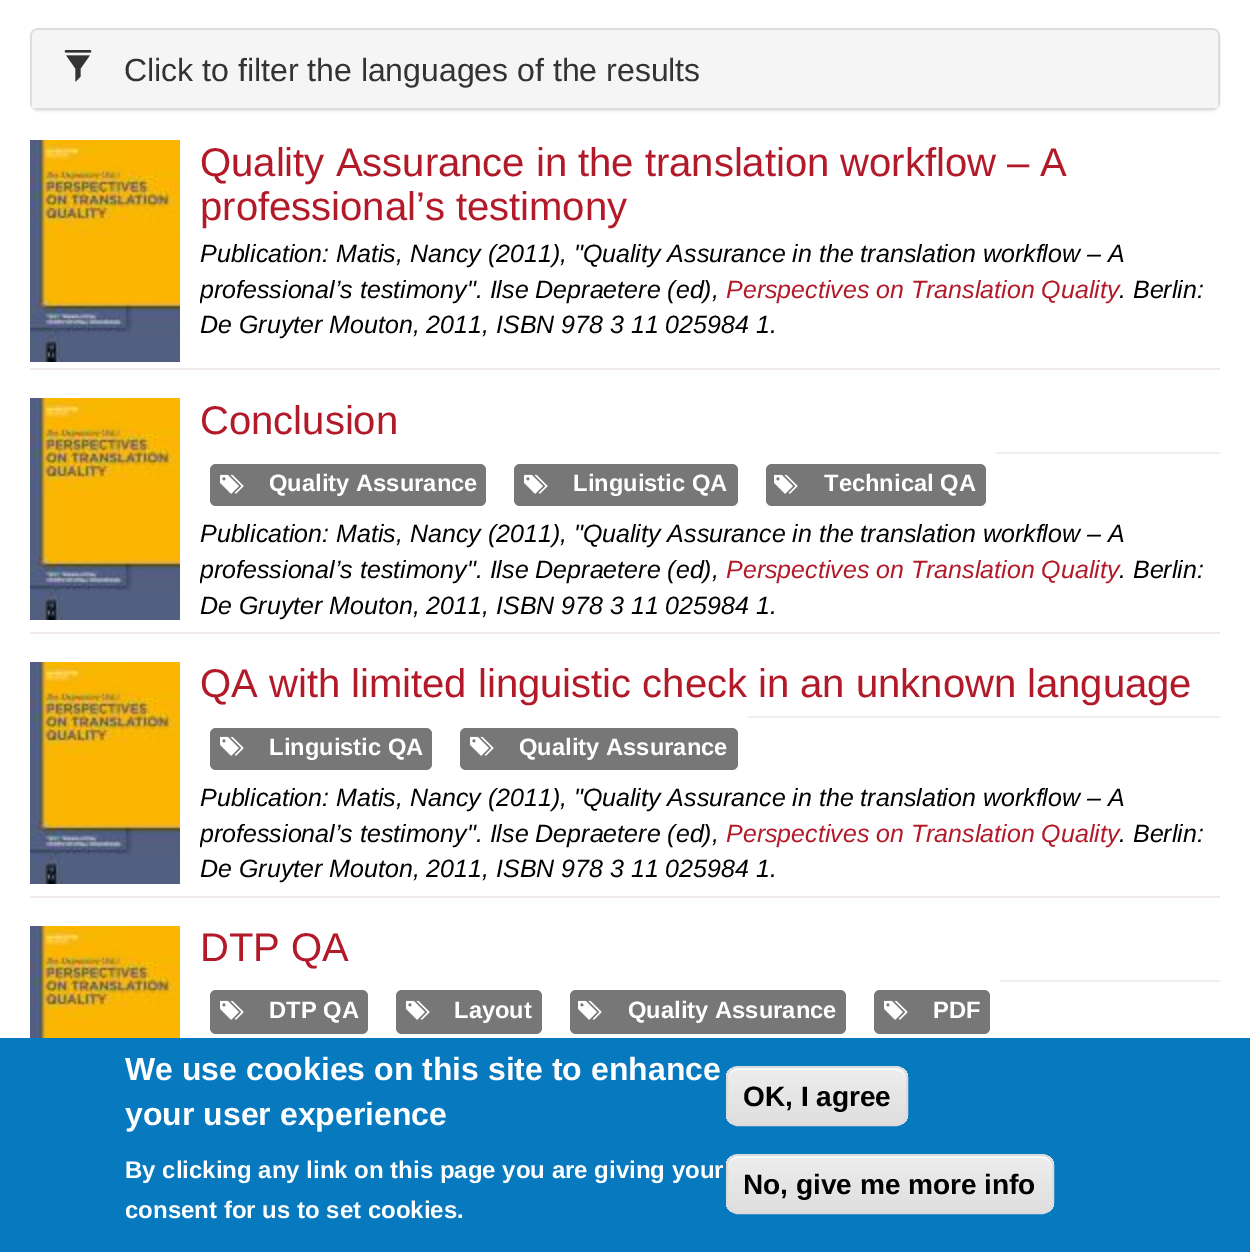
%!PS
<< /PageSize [1250 1252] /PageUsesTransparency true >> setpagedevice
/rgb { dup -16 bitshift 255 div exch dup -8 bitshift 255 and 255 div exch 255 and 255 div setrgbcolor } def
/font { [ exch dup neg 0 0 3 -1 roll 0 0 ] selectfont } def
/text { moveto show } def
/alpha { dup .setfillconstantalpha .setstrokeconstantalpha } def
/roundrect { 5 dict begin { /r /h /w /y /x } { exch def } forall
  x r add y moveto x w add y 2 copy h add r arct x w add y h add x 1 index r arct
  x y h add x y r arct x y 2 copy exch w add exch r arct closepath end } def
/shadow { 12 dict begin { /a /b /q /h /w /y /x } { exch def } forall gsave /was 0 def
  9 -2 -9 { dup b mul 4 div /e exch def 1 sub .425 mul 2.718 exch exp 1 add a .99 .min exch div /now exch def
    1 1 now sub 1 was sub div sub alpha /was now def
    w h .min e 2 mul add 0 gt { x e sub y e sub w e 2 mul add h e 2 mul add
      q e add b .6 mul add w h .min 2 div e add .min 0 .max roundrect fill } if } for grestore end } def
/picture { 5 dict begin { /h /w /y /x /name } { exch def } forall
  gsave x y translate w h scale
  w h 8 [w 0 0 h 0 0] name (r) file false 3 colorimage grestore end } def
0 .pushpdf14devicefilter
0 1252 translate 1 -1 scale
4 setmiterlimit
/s1 { /LiberationSans-Regular 32 font 16#333333 rgb } def
/s2 { /LiberationSans-Regular 40 font 16#B21A29 rgb } def
/s3 { /LiberationSans-Italic 25 font 16#000000 rgb } def
/s4 { /LiberationSans-Italic 25 font 16#B21A29 rgb } def
/s5 { /LiberationSans-Bold 23.75 font 16#FFFFFF rgb } def
/s6 { /LiberationSans-Bold 32 font 16#FFFFFF rgb } def
/s7 { /LiberationSans-Bold 24 font 16#FFFFFF rgb } def
/s8 { /LiberationSans-Bold 28 font 16#000000 rgb } def
16#FFFFFF rgb
0 0 1250 1252 rectfill
16#000000 rgb
30 30 1190 82 8 1 0.05 shadow
16#DDDDDD rgb
2 setlinewidth
31 29 1188 80 7 roundrect stroke
16#F5F5F5 rgb
38 30 moveto 1212 30 lineto 1215.5 30 1218 32.5 1218 36 curveto 1218 108 lineto 32 108 lineto 32 36 lineto 32 32.5 34.5 30 38 30 curveto closepath fill
(pic1.raw) 64 50 28 32 picture
s1
(Click to filter the languages of the results) 124 81 text
16#F1EAEA rgb
30 368 1190 2 rectfill
(pic2.raw) 30 140 150 222 picture
s2
(Quality Assurance in the translation workflow – A) 200 176 text
(professional’s testimony) 200 220 text
s3
(Publication: Matis, Nancy \(2011\), "Quality Assurance in the translation workflow – A) 200 262 text
gsave
200 140 1020 222 rectclip
(professional’s testimony". Ilse Depraetere \(ed\),) 200 298 text
grestore
s4
(Perspectives on Translation Quality) 726 298 text
s3
(. Berlin:) 1119 298 text
(De Gruyter Mouton, 2011, ISBN 978 3 11 025984 1.) 200 333 text
16#F1EAEA rgb
30 632 1190 2 rectfill
(pic2.raw) 30 398 150 222 picture
s2
(Conclusion) 200 434 text
16#EEEEEE rgb
996 452 224 2 rectfill
16#777777 rgb
210 464 276 42 6 roundrect fill
(pic3.raw) 220 474 24 20 picture
s5
(Quality Assurance) 269 491 text
16#777777 rgb
514 464 224 42 6 roundrect fill
(pic3.raw) 524 474 24 20 picture
s5
(Linguistic QA) 573 491 text
16#777777 rgb
766 464 220 42 6 roundrect fill
(pic3.raw) 774 474 24 20 picture
s5
(Technical QA) 824 491 text
s3
(Publication: Matis, Nancy \(2011\), "Quality Assurance in the translation workflow – A) 200 542 text
gsave
200 398 1020 228 rectclip
(professional’s testimony". Ilse Depraetere \(ed\),) 200 578 text
grestore
s4
(Perspectives on Translation Quality) 726 578 text
s3
(. Berlin:) 1119 578 text
(De Gruyter Mouton, 2011, ISBN 978 3 11 025984 1.) 200 614 text
16#F1EAEA rgb
30 896 1190 2 rectfill
(pic2.raw) 30 662 150 222 picture
s2
(QA with limited linguistic check in an unknown language) 200 697 text
16#EEEEEE rgb
748 716 472 2 rectfill
16#777777 rgb
210 728 222 42 6 roundrect fill
(pic3.raw) 220 736 24 20 picture
s5
(Linguistic QA) 269 755 text
16#777777 rgb
460 728 278 42 6 roundrect fill
(pic3.raw) 470 736 24 20 picture
s5
(Quality Assurance) 519 755 text
s3
(Publication: Matis, Nancy \(2011\), "Quality Assurance in the translation workflow – A) 200 806 text
gsave
200 662 1020 228 rectclip
(professional’s testimony". Ilse Depraetere \(ed\),) 200 842 text
grestore
s4
(Perspectives on Translation Quality) 726 842 text
s3
(. Berlin:) 1119 842 text
(De Gruyter Mouton, 2011, ISBN 978 3 11 025984 1.) 200 877 text
(pic4.raw) 30 926 150 112 picture
s2
(DTP QA) 200 961 text
16#EEEEEE rgb
1000 980 220 2 rectfill
16#777777 rgb
210 990 158 44 6 roundrect fill
(pic3.raw) 220 1000 24 20 picture
s5
(DTP QA) 269 1018 text
16#777777 rgb
396 990 146 44 6 roundrect fill
(pic3.raw) 406 1000 24 20 picture
s5
(Layout) 454 1018 text
16#777777 rgb
570 990 276 44 6 roundrect fill
(pic3.raw) 578 1000 24 20 picture
s5
(Quality Assurance) 628 1018 text
16#777777 rgb
874 990 116 44 6 roundrect fill
(pic3.raw) 884 1000 24 20 picture
s5
(PDF) 933 1018 text
16#0779BF rgb
0 1038 1250 214 rectfill
s6
(We use cookies on this site to enhance) 125 1080 text
(your user experience) 125 1125 text
s7
(By clicking any link on this page you are giving your) 125 1178 text
(consent for us to set cookies.) 125 1218 text
gsave
726 1066 182 60 12 roundrect clip newpath
gsave 726 1068 moveto 908 1068 lineto 908 1124 lineto 726 1124 lineto closepath clip newpath
<< /ShadingType 2 /ColorSpace /DeviceRGB /Coords [817 1068 817 1124] /Extend [true true] /Function << /FunctionType 3 /Domain [0 1] /Functions [<< /FunctionType 2 /Domain [0 1] /C0 [0.929 0.929 0.929] /C1 [0.929 0.929 0.929] /N 1 >> << /FunctionType 2 /Domain [0 1] /C0 [0.929 0.929 0.929] /C1 [0.875 0.875 0.875] /N 1 >>] /Bounds [0.05] /Encode [0 1 0 1] >> >> shfill grestore
grestore
738 1070 moveto 896 1070 lineto 902 1070 906 1074 906 1080 curveto 906 1078 lineto 906 1072 902 1068 896 1068 curveto 738 1068 lineto 732 1068 728 1072 728 1078 curveto 728 1080 lineto 728 1074 732 1070 738 1070 curveto closepath fill
16#DCDCDC rgb
727 1067 180 58 11 roundrect stroke
s8
(OK, I agree) 743 1106 text
gsave
726 1154 328 60 12 roundrect clip newpath
gsave 726 1156 moveto 1054 1156 lineto 1054 1212 lineto 726 1212 lineto closepath clip newpath
<< /ShadingType 2 /ColorSpace /DeviceRGB /Coords [890 1156 890 1212] /Extend [true true] /Function << /FunctionType 3 /Domain [0 1] /Functions [<< /FunctionType 2 /Domain [0 1] /C0 [0.929 0.929 0.929] /C1 [0.929 0.929 0.929] /N 1 >> << /FunctionType 2 /Domain [0 1] /C0 [0.929 0.929 0.929] /C1 [0.875 0.875 0.875] /N 1 >>] /Bounds [0.05] /Encode [0 1 0 1] >> >> shfill grestore
grestore
16#FFFFFF rgb
738 1158 moveto 1042 1158 lineto 1048 1158 1052 1162 1052 1168 curveto 1052 1166 lineto 1052 1160 1048 1156 1042 1156 curveto 738 1156 lineto 732 1156 728 1160 728 1166 curveto 728 1168 lineto 728 1162 732 1158 738 1158 curveto closepath fill
16#DCDCDC rgb
727 1155 326 58 11 roundrect stroke
s8
(No, give me more info) 743 1194 text
.poppdf14devicefilter showpage
